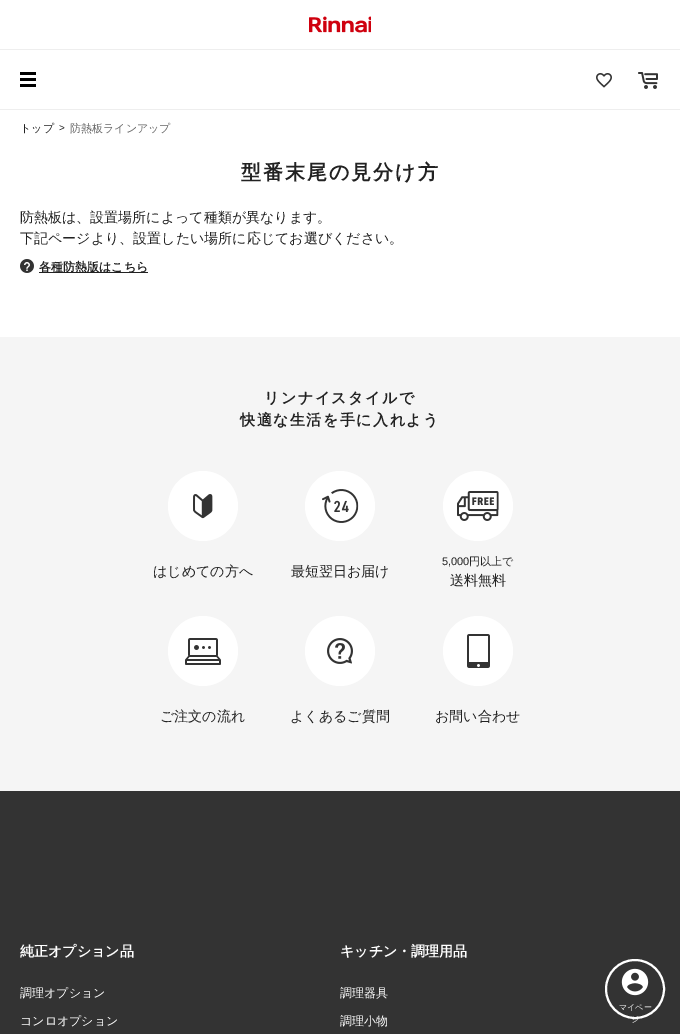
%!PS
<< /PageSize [680 1034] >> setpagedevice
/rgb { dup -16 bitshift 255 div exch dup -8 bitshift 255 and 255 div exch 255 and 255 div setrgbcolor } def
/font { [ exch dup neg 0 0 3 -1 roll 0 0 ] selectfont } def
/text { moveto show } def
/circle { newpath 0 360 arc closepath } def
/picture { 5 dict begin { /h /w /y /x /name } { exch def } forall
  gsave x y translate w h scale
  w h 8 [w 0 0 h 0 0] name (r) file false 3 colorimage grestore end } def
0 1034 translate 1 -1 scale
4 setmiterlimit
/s1 { /WenQuanYiZenHei-Medium 11 font 16#222222 rgb } def
/s2 { /LiberationSans-Regular 10 font 16#222222 rgb } def
/s3 { /WenQuanYiZenHei-Medium 11 font 16#666666 rgb } def
/s4 { /WenQuanYiZenHei-Medium 14 font 16#222222 rgb } def
/s5 { /WenQuanYiZenHei-Bold 12 font 16#222222 rgb } def
/s6 { /LiberationSans-Regular 11 font 16#222222 rgb } def
/s7 { /WenQuanYiZenHei-Bold 14 font 16#FFFFFF rgb } def
/s8 { /WenQuanYiZenHei-Medium 12 font 16#FFFFFF rgb } def
/s9 { /WenQuanYiZenHei-Medium 8 font 16#FFFFFF rgb } def
16#FFFFFF rgb
0 0 680 1034 rectfill
16#EEEEEE rgb
0 49 680 1 rectfill
(pic1.raw) 309 16 62 17 picture
0 109 680 1 rectfill
16#000000 rgb
20 72 16 3 rectfill
20 78 16 3 rectfill
20 84 16 3 rectfill
(pic2.raw) 596 73 16 15 picture
(pic3.raw) 638 72 20 17 picture
s1
(トップ) 20 132 text
s2
(>) 59 131 text
s3
(防熱板ラインアップ) 70 132 text
/WenQuanYiZenHei-Bold 20 font
16#222222 rgb
241 179 moveto 2 0 (型番末尾の見分け方) ashow
s4
(防熱板は、設置場所によって種類が異なります。) 20 222 text
(下記ページより、設置したい場所に応じてお選びください。) 20 243 text
(pic4.raw) 20 259 14 14 picture
39 272 109 1 rectfill
s5
(各種防熱版はこちら) 39 271 text
16#F5F5F5 rgb
0 337 680 454 rectfill
/WenQuanYiZenHei-Bold 15 font
16#222222 rgb
264 403 moveto 1.5 0 (リンナイスタイルで) ashow
240 425 moveto 1.5 0 (快適な生活を手に入れよう) ashow
16#FFFFFF rgb
203 506 35 circle fill
(pic5.raw) 193 494 20 25 picture
s4
(はじめての方へ) 153 576 text
16#FFFFFF rgb
340 506 35 circle fill
(pic6.raw) 322 489 37 34 picture
s4
(最短翌日お届け) 291 576 text
16#FFFFFF rgb
478 506 35 circle fill
(pic7.raw) 457 491 42 30 picture
s6
(5,000) 442 565 text
s1
(円以上で) 469 565 text
s4
(送料無料) 450 585 text
16#FFFFFF rgb
203 651 35 circle fill
(pic8.raw) 185 638 36 27 picture
s4
(ご注文の流れ) 160 721 text
16#FFFFFF rgb
340 651 35 circle fill
(pic9.raw) 327 638 26 26 picture
s4
(よくあるご質問) 290 721 text
16#FFFFFF rgb
478 651 35 circle fill
(pic10.raw) 467 634 23 34 picture
s4
(お問い合わせ) 435 721 text
16#333333 rgb
0 791 680 243 rectfill
s7
(純正オプション品) 20 956 text
s8
(調理オプション) 20 997 text
(コンロオプション) 20 1025 text
s7
(キッチン・調理用品) 340 956 text
s8
(調理器具) 340 997 text
(調理小物) 340 1025 text
2 setlinewidth
635 989 29 circle stroke
(pic11.raw) 621 968 28 28 picture
s9
(マイペー) 619 1010 text
(ジ) 631 1022 text
showpage
